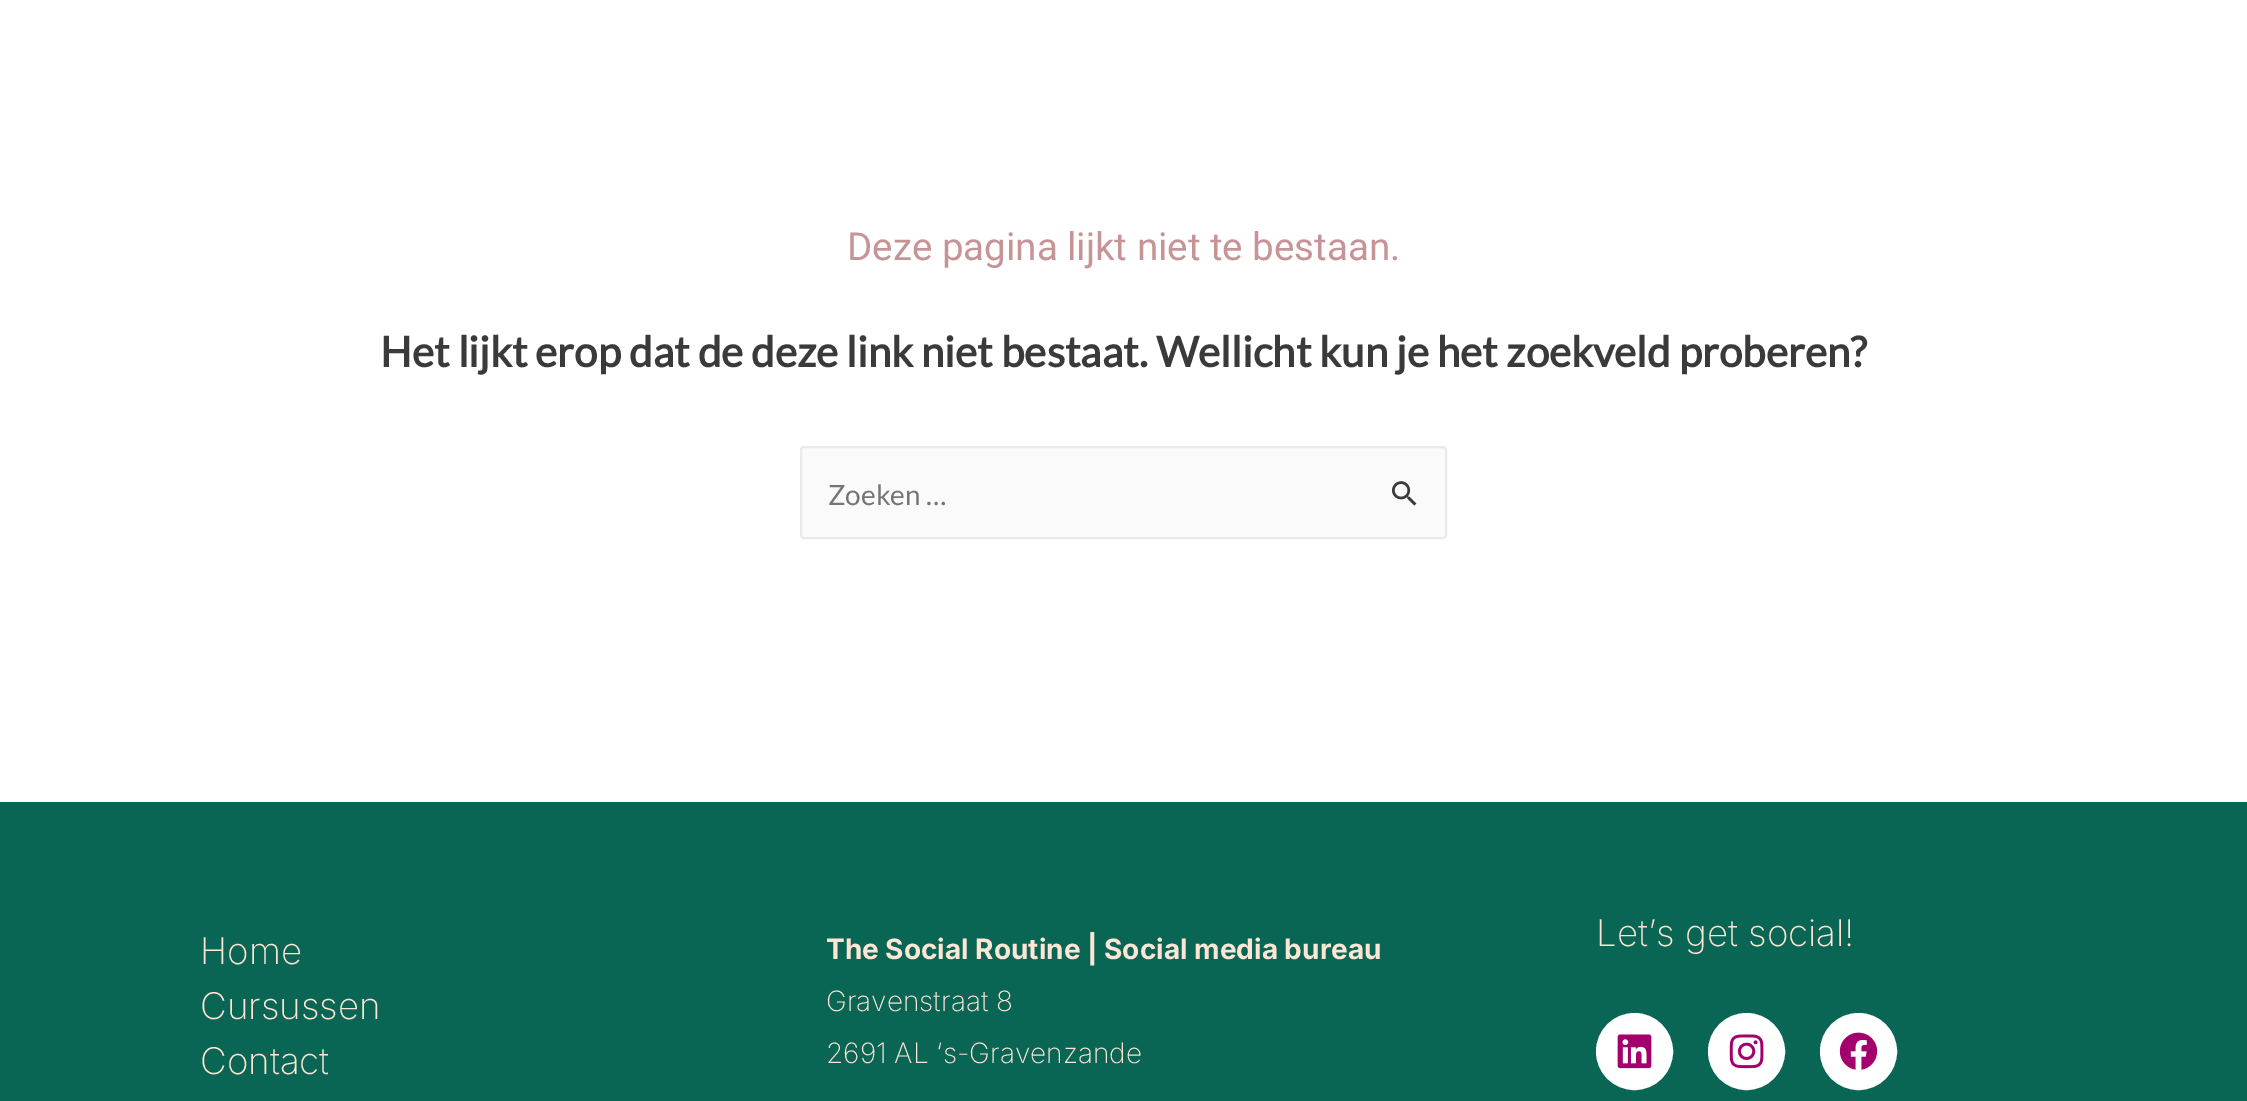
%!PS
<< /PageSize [2247 1101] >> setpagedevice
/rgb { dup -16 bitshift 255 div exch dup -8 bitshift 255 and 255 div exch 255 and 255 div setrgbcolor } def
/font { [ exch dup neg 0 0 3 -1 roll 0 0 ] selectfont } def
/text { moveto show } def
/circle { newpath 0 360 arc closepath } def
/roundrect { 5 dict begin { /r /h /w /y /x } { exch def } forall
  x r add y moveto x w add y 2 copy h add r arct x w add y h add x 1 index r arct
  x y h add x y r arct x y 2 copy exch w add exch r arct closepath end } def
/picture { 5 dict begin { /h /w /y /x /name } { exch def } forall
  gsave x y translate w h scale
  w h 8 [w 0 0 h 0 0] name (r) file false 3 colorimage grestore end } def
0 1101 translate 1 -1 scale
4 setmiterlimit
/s1 { /Roboto-Regular 38.5 font 16#C69496 rgb } def
/s2 { /Lato-Bold 42 font 16#3A3A3A rgb } def
/s3 { /Lato-Regular 28 font 16#757575 rgb } def
/s4 { /Inter-ExtraLight 36.75 font 16#FFE5D4 rgb } def
/s5 { /Inter-Bold 28 font 16#FFE5D4 rgb } def
/s6 { /Inter-ExtraLight 28 font 16#FFE5D4 rgb } def
16#FFFFFF rgb
0 0 2247 1101 rectfill
s1
(Deze pagina lijkt niet te bestaan.) 847 260 text
s2
(Het lijkt erop dat de deze link niet bestaat. Wellicht kun je het zoekveld proberen?) 380 367 text
16#FAFAFA rgb
801 447 645 91 3 roundrect gsave fill grestore
16#EAEAEA rgb
2 setlinewidth
stroke
s3
(Zoeken …) 828 505 text
(pic1.raw) 1391 481 26 25 picture
16#096654 rgb
0 802 2247 299 rectfill
s4
(Home) 200 964 text
(Cursussen) 200 1019 text
(Contact) 200 1074 text
s5
(The Social Routine | Social media bureau) 826 959 text
s6
(Gravenstraat 8) 826 1011 text
(2691 AL ‘s-Gravenzande) 826 1063 text
s4
(Let’s get social!) 1596 946 text
16#FFFFFF rgb
1634.5 1051.5 37.5 circle gsave fill grestore
stroke
(pic2.raw) 1617 1034 35 35 picture
1746.5 1051.5 37.5 circle gsave fill grestore
stroke
(pic3.raw) 1729 1034 35 35 picture
1858.5 1051.5 37.5 circle gsave fill grestore
stroke
(pic4.raw) 1839 1032 39 38 picture
showpage
